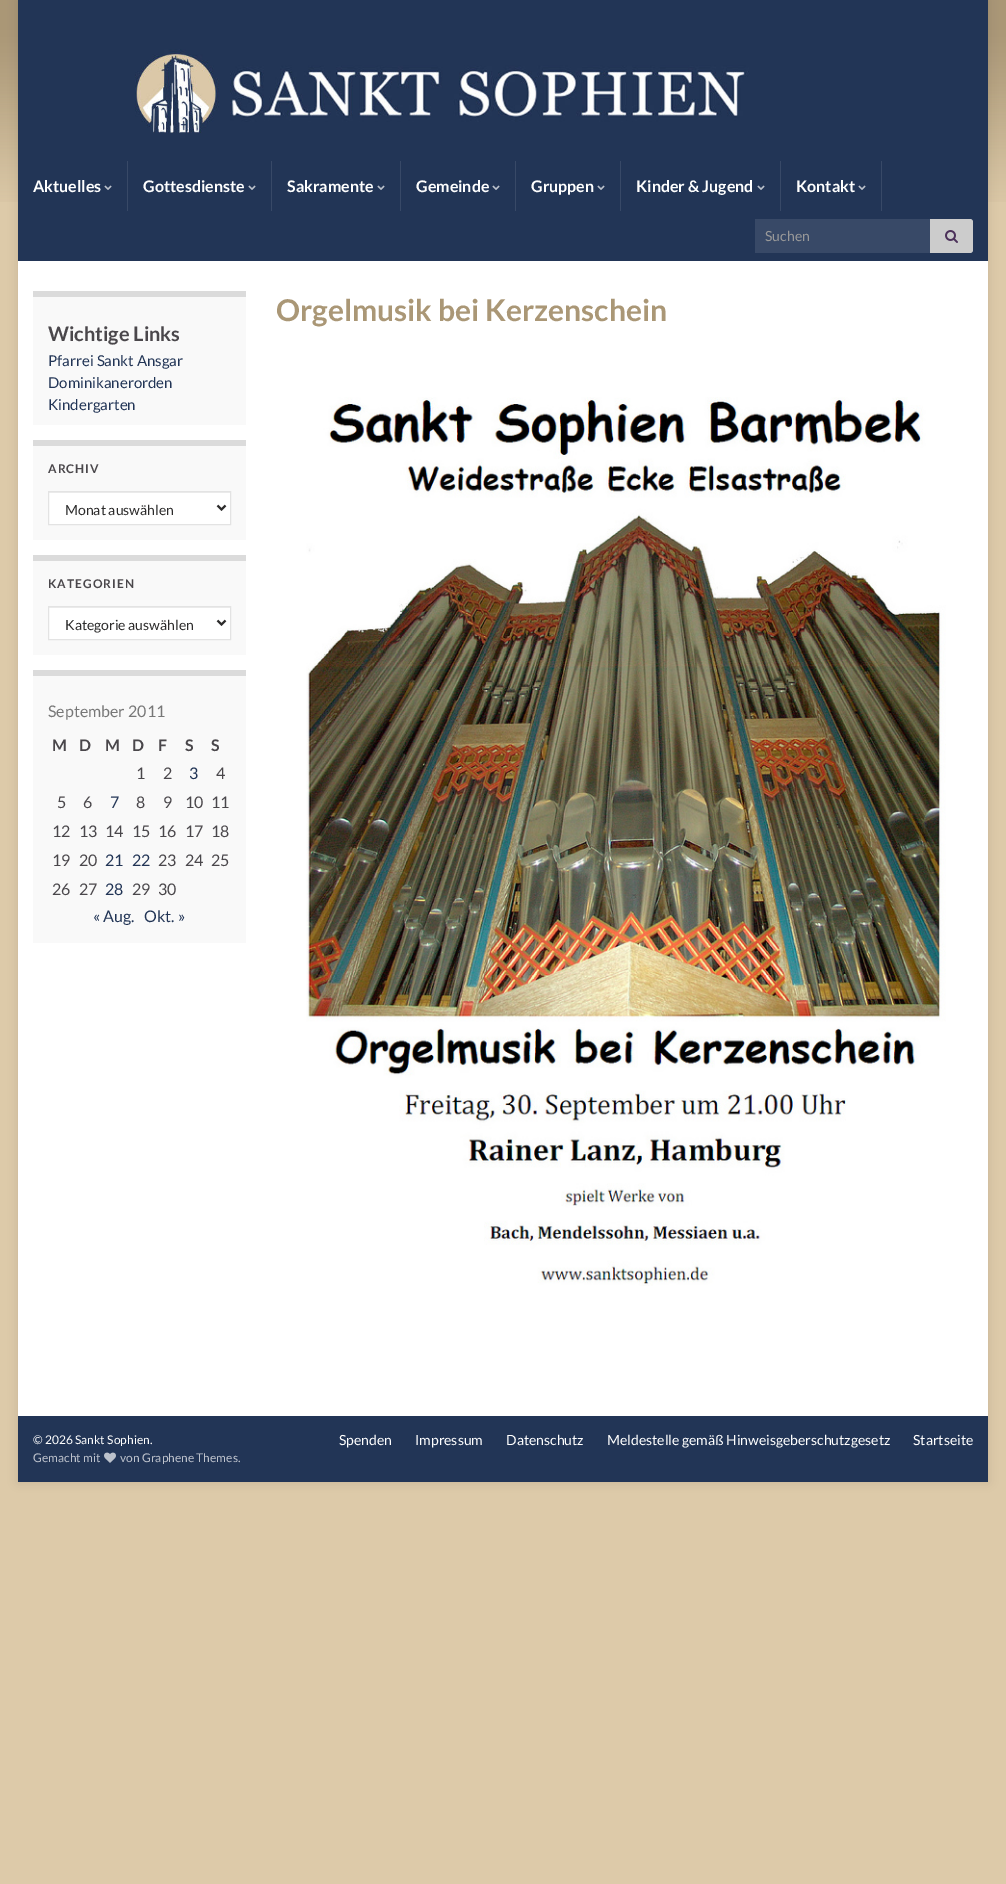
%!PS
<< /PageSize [1006 1884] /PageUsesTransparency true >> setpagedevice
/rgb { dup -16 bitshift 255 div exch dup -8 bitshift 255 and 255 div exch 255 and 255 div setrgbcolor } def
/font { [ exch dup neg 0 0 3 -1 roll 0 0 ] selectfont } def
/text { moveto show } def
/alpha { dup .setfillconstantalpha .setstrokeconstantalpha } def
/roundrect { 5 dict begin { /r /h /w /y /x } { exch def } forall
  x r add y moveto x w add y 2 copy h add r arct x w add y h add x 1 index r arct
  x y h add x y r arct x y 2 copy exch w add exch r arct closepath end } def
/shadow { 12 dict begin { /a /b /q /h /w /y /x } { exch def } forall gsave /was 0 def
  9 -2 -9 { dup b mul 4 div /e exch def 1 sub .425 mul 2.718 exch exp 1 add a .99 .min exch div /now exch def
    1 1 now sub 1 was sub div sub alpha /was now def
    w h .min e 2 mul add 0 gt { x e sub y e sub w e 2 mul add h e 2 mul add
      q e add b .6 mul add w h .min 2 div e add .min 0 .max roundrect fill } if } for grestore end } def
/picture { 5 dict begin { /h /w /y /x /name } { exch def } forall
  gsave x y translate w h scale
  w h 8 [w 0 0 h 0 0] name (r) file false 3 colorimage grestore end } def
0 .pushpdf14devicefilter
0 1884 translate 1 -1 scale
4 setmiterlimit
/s1 { /Lato-Bold 16 font 16#FFFFFF rgb } def
/s2 { /Lato-Regular 14 font 16#999999 rgb } def
/s3 { /Lato-Bold 30 font 16#AA9776 rgb } def
/s4 { /Lato-Bold 20 font 16#4A474B rgb } def
/s5 { /Lato-Regular 15 font 16#223556 rgb } def
/s6 { /Lato-Regular 14 font 16#2C2B2B rgb } def
/s7 { /Lato-Regular 16 font 16#777777 rgb } def
/s8 { /Lato-Bold 16 font 16#4A474B rgb } def
/s9 { /Lato-Regular 16 font 16#4A474B rgb } def
/s10 { /Lato-Regular 16 font 16#223556 rgb } def
/s11 { /Lato-Regular 12 font 16#FFFFFF rgb } def
/s12 { /Lato-Regular 12 font 16#BDC2CC rgb } def
/s13 { /Lato-Regular 14 font 16#FFFFFF rgb } def
16#DDCAA9 rgb
0 0 1006 1884 rectfill
(pic1.raw) 0 0 1006 202 picture
16#000000 rgb
18 0 970 1482 0 5 0.1 shadow
16#223556 rgb
18 0 970 21 rectfill
(pic2.raw) 18 21 970 140 picture
18 161 970 100 rectfill
16#384967 rgb
127 161 1 50 rectfill
s1
(Aktuelles) 33 192 text
(pic3.raw) 104 185 8 5 picture
16#384967 rgb
271 161 1 50 rectfill
s1
(Gottesdienste) 143 192 text
(pic3.raw) 248 185 8 5 picture
16#384967 rgb
400 161 1 50 rectfill
s1
(Sakramente) 287 192 text
(pic3.raw) 377 185 8 5 picture
16#384967 rgb
515 161 1 50 rectfill
s1
(Gemeinde) 416 192 text
(pic3.raw) 492 185 8 5 picture
16#384967 rgb
620 161 1 50 rectfill
s1
(Gruppen) 531 192 text
(pic3.raw) 597 185 8 5 picture
16#384967 rgb
780 161 1 50 rectfill
s1
(Kinder & Jugend) 636 192 text
(pic3.raw) 757 185 8 5 picture
16#384967 rgb
881 161 1 50 rectfill
s1
(Kontakt) 796 192 text
(pic3.raw) 858 185 8 5 picture
16#384967 rgb
755 219 175 34 rectfill
s2
(Suchen) 765 241 text
16#CCCCCC rgb
930 219 moveto 970 219 lineto 971.5 219 973 220.5 973 222 curveto 973 250 lineto 973 251.5 971.5 253 970 253 curveto 930 253 lineto closepath fill
(pic4.raw) 945 230 13 13 picture
16#FFFFFF rgb
18 261 970 1155 rectfill
s3
(Orgelmusik bei Kerzenschein) 276 321 text
(pic5.raw) 306 397 640 889 picture
16#F9F9F9 rgb
33 297 213 128 rectfill
16#DBDBDB rgb
33 291 213 6 rectfill
s4
(Wichtige Links) 48 341 text
s5
(Pfarrei Sankt Ansgar) 48 366 text
(Dominikanerorden) 48 388 text
(Kindergarten) 48 410 text
16#F9F9F9 rgb
33 446 213 94 rectfill
16#DBDBDB rgb
33 440 213 6 rectfill
/Lato-Bold 12 font
16#4A474B rgb
48 473 moveto 1 0 (ARCHIV) ashow
16#FFFFFF rgb
49 493 181 31 rectfill
16#ECECEC rgb
49 492 181 1 rectfill
16#E3E3E3 rgb
48.5 491.5 182 33 rectstroke
16#2C2B2B rgb
2 setlinewidth
217.5 505.5 moveto 221.5 509.5 lineto 225.5 505.5 lineto stroke
s6
(Monat auswählen) 65 515 text
16#F9F9F9 rgb
33 561 213 94 rectfill
16#DBDBDB rgb
33 555 213 6 rectfill
/Lato-Bold 12 font
16#4A474B rgb
48 588 moveto 1 0 (KATEGORIEN) ashow
16#FFFFFF rgb
49 608 181 31 rectfill
16#ECECEC rgb
49 607 181 1 rectfill
16#E3E3E3 rgb
1 setlinewidth
48.5 606.5 182 33 rectstroke
16#2C2B2B rgb
2 setlinewidth
217.5 620.5 moveto 221.5 624.5 lineto 225.5 620.5 lineto stroke
s6
(Kategorie auswählen) 65 630 text
16#F9F9F9 rgb
33 676 213 267 rectfill
16#DBDBDB rgb
33 670 213 6 rectfill
s7
(September 2011) 48 717 text
s8
(M) 52 751 text
(D) 79 751 text
(M) 105 751 text
(D) 132 751 text
(F) 158 751 text
(S) 185 751 text
(S) 211 751 text
s9
(1) 136 779 text
(2) 163 779 text
s10
(3) 189 779 text
s9
(4) 216 779 text
(5) 57 808 text
(6) 83 808 text
s10
(7) 110 808 text
s9
(8) 136 808 text
(9) 163 808 text
(10) 185 808 text
(11) 211 808 text
(12) 52 837 text
(13) 79 837 text
(14) 105 837 text
(15) 132 837 text
(16) 158 837 text
(17) 185 837 text
(18) 211 837 text
(19) 52 866 text
(20) 79 866 text
s10
(21) 105 866 text
(22) 132 866 text
s9
(23) 158 866 text
(24) 185 866 text
(25) 211 866 text
(26) 52 895 text
(27) 79 895 text
s10
(28) 105 895 text
s9
(29) 132 895 text
(30) 158 895 text
s10
(« Aug.) 93 922 text
(Okt. ») 144 922 text
18 1416 970 66 rectfill
s11
(© 2026 Sankt Sophien.) 33 1444 text
s12
(Gemacht mit) 33 1462 text
(pic6.raw) 104 1452 12 11 picture
(von Graphene Themes.) 120 1462 text
s13
(Spenden) 339 1445 text
(Impressum) 415 1445 text
(Datenschutz) 506 1445 text
(Meldestelle gemäß Hinweisgeberschutzgesetz) 607 1445 text
(Startseite) 913 1445 text
.poppdf14devicefilter showpage
